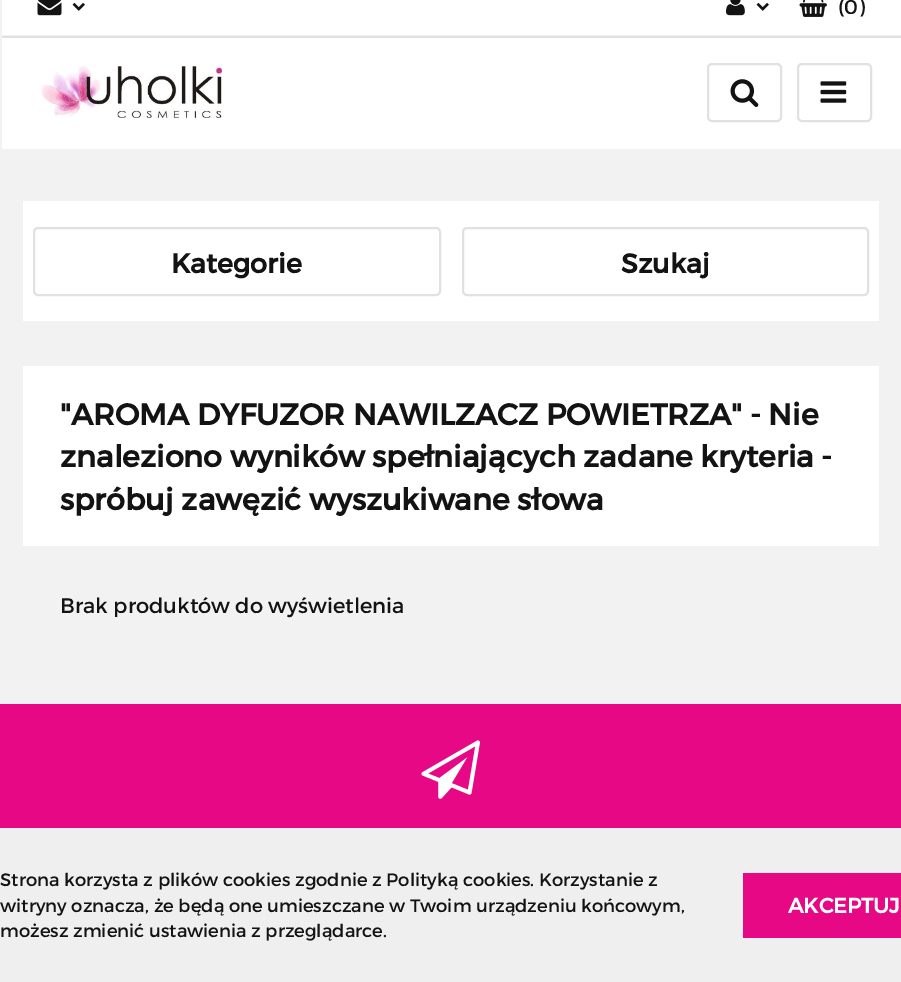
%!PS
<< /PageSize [901 982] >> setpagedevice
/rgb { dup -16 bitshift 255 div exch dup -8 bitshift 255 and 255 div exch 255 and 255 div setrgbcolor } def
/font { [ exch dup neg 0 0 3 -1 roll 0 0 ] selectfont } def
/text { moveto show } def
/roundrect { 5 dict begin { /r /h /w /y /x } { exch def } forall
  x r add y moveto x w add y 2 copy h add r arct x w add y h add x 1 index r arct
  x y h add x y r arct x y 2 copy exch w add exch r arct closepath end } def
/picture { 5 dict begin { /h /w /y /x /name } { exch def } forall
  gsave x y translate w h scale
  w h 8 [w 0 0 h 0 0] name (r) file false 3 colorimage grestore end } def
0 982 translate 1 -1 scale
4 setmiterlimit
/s1 { /Montserrat-Regular 20 font 16#131313 rgb } def
/s2 { /Montserrat-Bold 27 font 16#131313 rgb } def
/s3 { /Montserrat-Bold 30 font 16#131313 rgb } def
/s4 { /Montserrat-Regular 21 font 16#131313 rgb } def
/s5 { /Montserrat-Regular 18 font 16#131313 rgb } def
/s6 { /Montserrat-Bold 21 font 16#FFFFFF rgb } def
16#F2F2F2 rgb
0 0 901 982 rectfill
16#FFFFFF rgb
2 0 899 35 rectfill
(pic1.raw) 37 0 25 16 picture
(pic2.raw) 72 3 13 8 picture
(pic3.raw) 726 0 19 16 picture
(pic2.raw) 756 3 13 8 picture
(pic4.raw) 799 0 28 17 picture
s1
(\(0\)) 838 14 text
16#EFEFEF rgb
2 35 899 1 rectfill
16#E1E1E1 rgb
2 36 899 2 rectfill
16#FFFFFF rgb
2 38 899 111 rectfill
(pic5.raw) 39 65 183 53 picture
16#E1E1E1 rgb
2 setlinewidth
708 64 73 57 4 roundrect stroke
(pic6.raw) 730 79 29 28 picture
798 64 73 57 4 roundrect stroke
(pic7.raw) 820 81 27 22 picture
16#FFFFFF rgb
23 201 856 120 rectfill
16#E1E1E1 rgb
34 228 406 67 4 roundrect stroke
s2
(Kategorie) 171 273 text
16#E1E1E1 rgb
463 228 405 67 4 roundrect stroke
s2
(Szukaj) 621 273 text
16#FFFFFF rgb
23 366 856 180 rectfill
s3
("AROMA DYFUZOR NAWILZACZ POWIETRZA" - Nie) 60 425 text
(znaleziono wyników spełniających zadane kryteria -) 60 467 text
(spróbuj zawęzić wyszukiwane słowa) 60 510 text
s4
(Brak produktów do wyświetlenia) 60 613 text
16#E60884 rgb
0 704 901 124 rectfill
(pic8.raw) 421 740 59 59 picture
16#EFEFEF rgb
0 828 901 154 rectfill
s5
(Strona korzysta z plików cookies zgodnie z Polityką cookies. Korzystanie z) 0 886 text
(witryny oznacza, że będą one umieszczane w Twoim urządzeniu końcowym,) 0 912 text
(możesz zmienić ustawienia z przeglądarce.) 0 937 text
16#E60884 rgb
743 873 158 65 rectfill
s6
(AKCEPTUJ) 788 913 text
showpage
